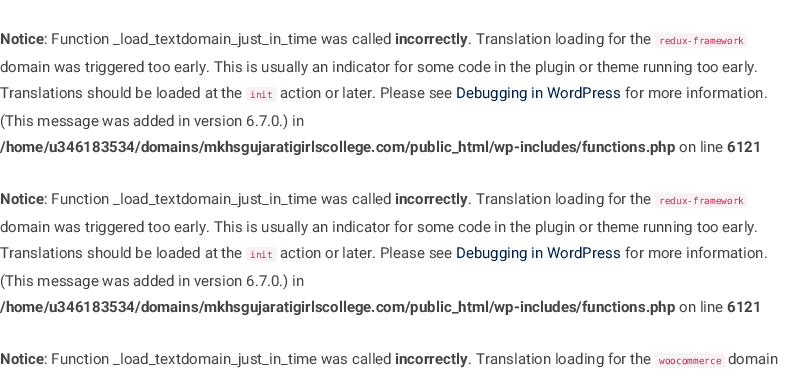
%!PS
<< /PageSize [791 388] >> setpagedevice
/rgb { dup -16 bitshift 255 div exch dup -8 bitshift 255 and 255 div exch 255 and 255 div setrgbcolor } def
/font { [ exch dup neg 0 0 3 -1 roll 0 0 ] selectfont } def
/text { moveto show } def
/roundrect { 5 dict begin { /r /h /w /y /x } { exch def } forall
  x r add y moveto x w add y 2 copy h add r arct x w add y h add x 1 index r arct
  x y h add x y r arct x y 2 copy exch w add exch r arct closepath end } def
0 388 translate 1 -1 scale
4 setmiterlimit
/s1 { /Roboto-Bold 15 font 16#444444 rgb } def
/s2 { /Roboto-Regular 15 font 16#444444 rgb } def
/s3 { /DejaVuSansMono-Regular 9.4 font 16#C7254E rgb } def
/s4 { /Roboto-Regular 15 font 16#002147 rgb } def
16#FFFFFF rgb
0 0 791 388 rectfill
s1
(Notice) 0 44 text
s2
(: Function _load_textdomain_just_in_time was called) 44 44 text
s1
(incorrectly) 395 44 text
s2
(. Translation loading for the) 468 44 text
16#F9F2F4 rgb
655 33 92 15 4 roundrect fill
s3
(redux-framework) 659 44 text
s2
(domain was triggered too early. This is usually an indicator for some code in the plugin or theme running too early.) 0 72 text
(Translations should be loaded at the) 0 98 text
16#F9F2F4 rgb
246 87 31 15 4 roundrect fill
s3
(init) 250 98 text
s2
(action or later. Please see) 280 98 text
s4
(Debugging in WordPress) 456 98 text
s2
(for more information.) 625 98 text
(\(This message was added in version 6.7.0.\) in) 0 126 text
s1
(/home/u346183534/domains/mkhsgujaratigirlscollege.com/public_html/wp-includes/functions.php) 0 152 text
s2
(on line) 679 152 text
s1
(6121) 727 152 text
(Notice) 0 204 text
s2
(: Function _load_textdomain_just_in_time was called) 44 204 text
s1
(incorrectly) 395 204 text
s2
(. Translation loading for the) 468 204 text
16#F9F2F4 rgb
655 193 92 15 4 roundrect fill
s3
(redux-framework) 659 204 text
s2
(domain was triggered too early. This is usually an indicator for some code in the plugin or theme running too early.) 0 232 text
(Translations should be loaded at the) 0 258 text
16#F9F2F4 rgb
246 247 31 15 4 roundrect fill
s3
(init) 250 258 text
s2
(action or later. Please see) 280 258 text
s4
(Debugging in WordPress) 456 258 text
s2
(for more information.) 625 258 text
(\(This message was added in version 6.7.0.\) in) 0 286 text
s1
(/home/u346183534/domains/mkhsgujaratigirlscollege.com/public_html/wp-includes/functions.php) 0 312 text
s2
(on line) 679 312 text
s1
(6121) 727 312 text
(Notice) 0 364 text
s2
(: Function _load_textdomain_just_in_time was called) 44 364 text
s1
(incorrectly) 395 364 text
s2
(. Translation loading for the) 468 364 text
16#F9F2F4 rgb
655 353 70 15 4 roundrect fill
s3
(woocommerce) 659 364 text
s2
(domain) 728 364 text
showpage
